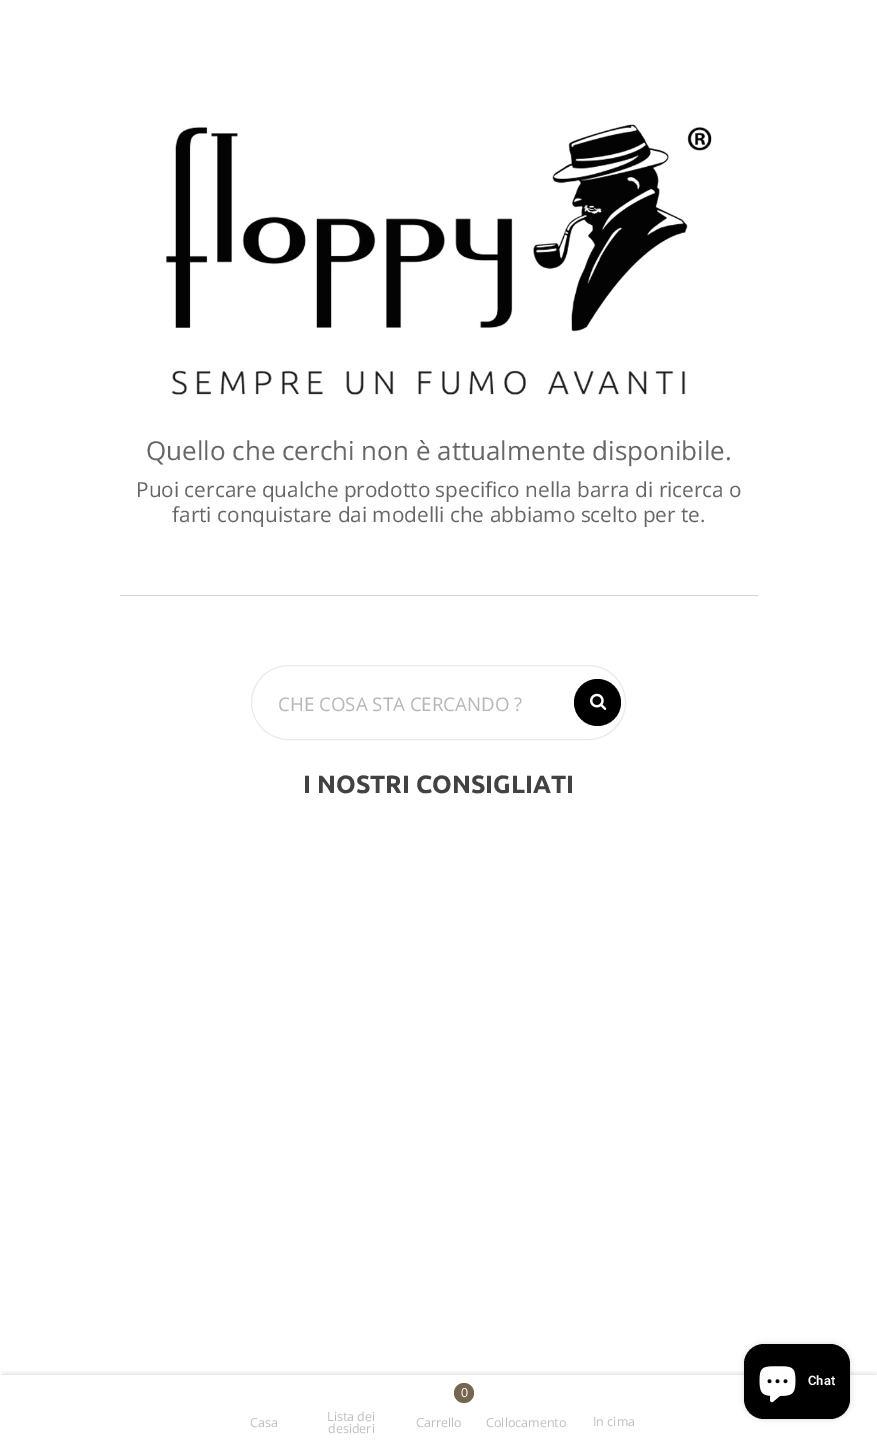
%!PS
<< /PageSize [877 1444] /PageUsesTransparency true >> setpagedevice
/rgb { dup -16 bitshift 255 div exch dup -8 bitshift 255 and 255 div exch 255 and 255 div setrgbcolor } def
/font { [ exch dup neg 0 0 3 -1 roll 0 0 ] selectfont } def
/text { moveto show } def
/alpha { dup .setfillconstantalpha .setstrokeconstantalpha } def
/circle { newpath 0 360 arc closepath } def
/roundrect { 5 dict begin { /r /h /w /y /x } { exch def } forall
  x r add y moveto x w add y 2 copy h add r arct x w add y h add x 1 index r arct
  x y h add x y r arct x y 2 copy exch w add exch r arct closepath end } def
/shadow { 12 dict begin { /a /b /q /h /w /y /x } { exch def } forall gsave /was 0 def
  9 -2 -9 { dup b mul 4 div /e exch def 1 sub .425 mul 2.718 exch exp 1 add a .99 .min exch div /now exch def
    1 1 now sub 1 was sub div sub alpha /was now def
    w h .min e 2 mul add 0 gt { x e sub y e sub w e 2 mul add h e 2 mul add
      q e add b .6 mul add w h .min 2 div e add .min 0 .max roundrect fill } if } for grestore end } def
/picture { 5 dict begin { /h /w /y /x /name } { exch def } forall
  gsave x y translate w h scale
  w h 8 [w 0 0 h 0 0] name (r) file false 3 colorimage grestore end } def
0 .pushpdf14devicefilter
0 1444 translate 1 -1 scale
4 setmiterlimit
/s1 { /OpenSans-Regular 26 font 16#666666 rgb } def
/s2 { /OpenSans-Regular 20.8 font 16#666666 rgb } def
/s3 { /OpenSans-Regular 18.75 font 16#B7B7B7 rgb } def
/s4 { /Ubuntu-Bold 25 font 16#424240 rgb } def
/s5 { /Roboto-SemiBold 13 font 16#FFFFFF rgb } def
/s6 { /OpenSans-Regular 12.5 font 16#BEBEBE rgb } def
/s7 { /OpenSans-Regular 12.5 font 16#FFFFFF rgb } def
16#FFFFFF rgb
0 0 877 1444 rectfill
(pic1.raw) 166 124 546 271 picture
s1
(Quello che cerchi non è attualmente disponibile.) 146 460 text
s2
(Puoi cercare qualche prodotto specifico nella barra di ricerca o) 136 497 text
(farti conquistare dai modelli che abbiamo scelto per te.) 172 522 text
16#D3D3D3 rgb
120 595 638 1 rectfill
16#EAEAEA rgb
251.5 665.5 374 74 37 roundrect stroke
s3
(CHE COSA STA CERCANDO ?) 278 711 text
16#000000 rgb
597.5 702.5 23.5 circle fill
(pic2.raw) 590 693 17 17 picture
s4
(I NOSTRI CONSIGLIATI) 303 793 text
16#000000 rgb
744 1344 106 75 20 3 0.15 shadow
gsave
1 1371 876 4 rectclip
3 1375 872 65 0 3 0.2 shadow
grestore
744 1344 106 75 20 roundrect fill
(pic3.raw) 759 1366 37 37 picture
s5
(Chat) 808 1385 text
s6
(Casa) 250 1427 text
(Lista dei) 327 1421 text
(desideri) 328 1433 text
16#75664F rgb
464 1393 10 circle fill
s7
(0) 461 1397 text
s6
(Carrello) 416 1427 text
(Collocamento) 486 1427 text
(In cima) 593 1426 text
.poppdf14devicefilter showpage
